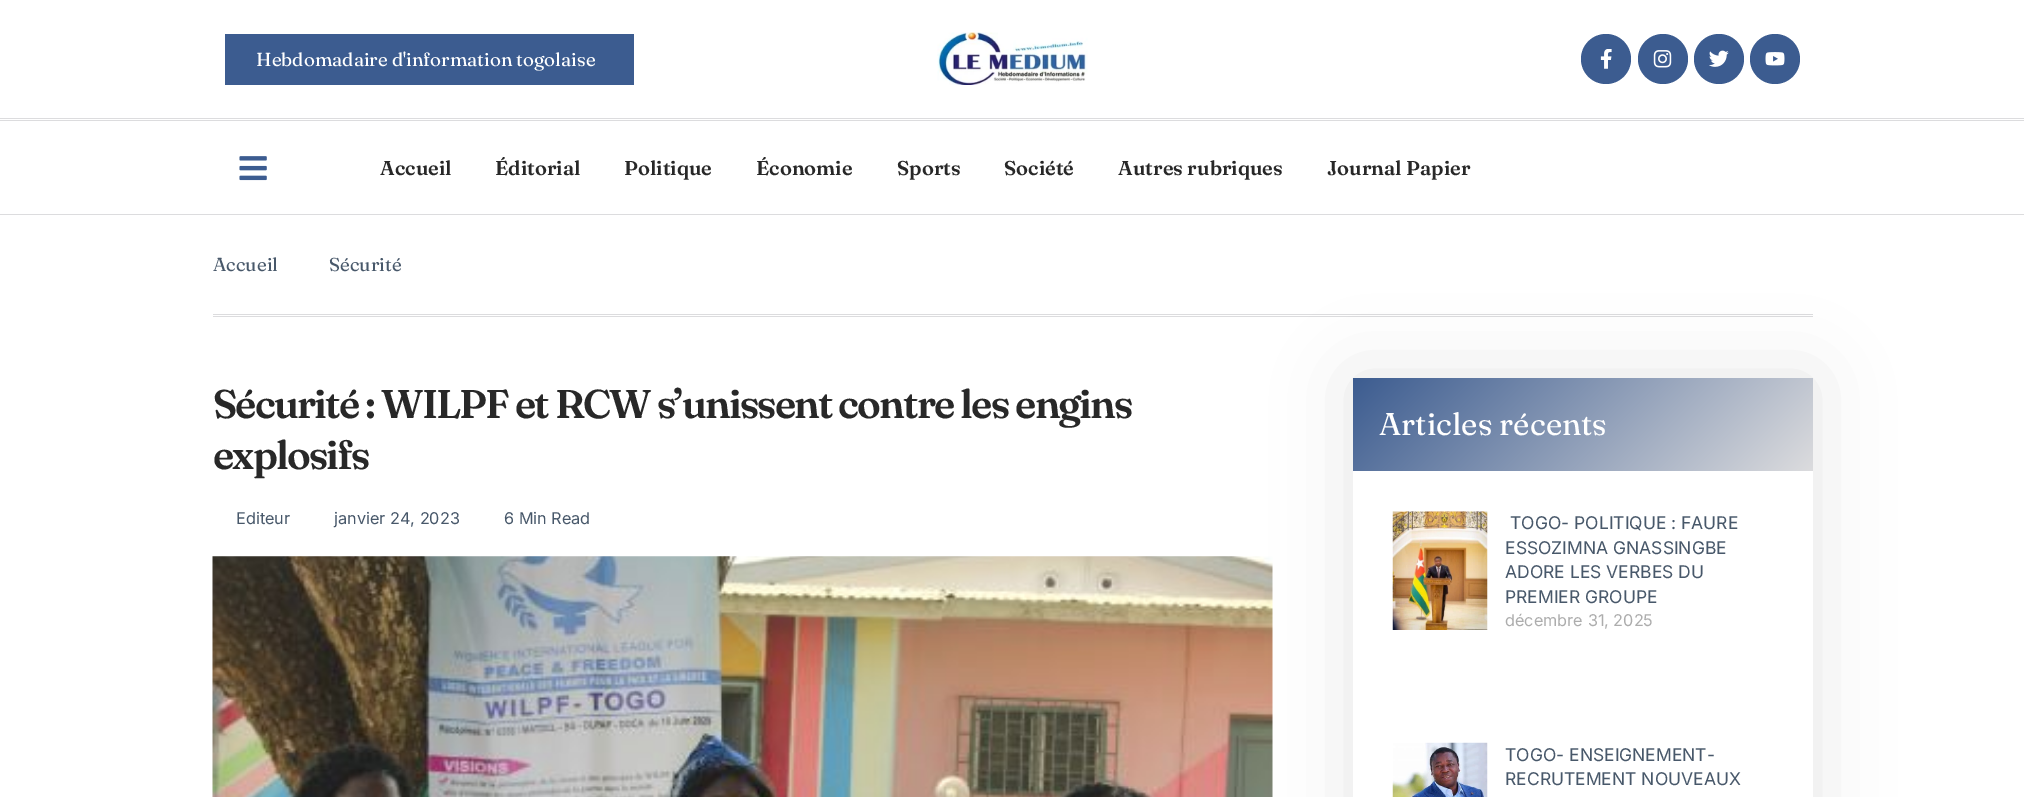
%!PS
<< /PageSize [2024 797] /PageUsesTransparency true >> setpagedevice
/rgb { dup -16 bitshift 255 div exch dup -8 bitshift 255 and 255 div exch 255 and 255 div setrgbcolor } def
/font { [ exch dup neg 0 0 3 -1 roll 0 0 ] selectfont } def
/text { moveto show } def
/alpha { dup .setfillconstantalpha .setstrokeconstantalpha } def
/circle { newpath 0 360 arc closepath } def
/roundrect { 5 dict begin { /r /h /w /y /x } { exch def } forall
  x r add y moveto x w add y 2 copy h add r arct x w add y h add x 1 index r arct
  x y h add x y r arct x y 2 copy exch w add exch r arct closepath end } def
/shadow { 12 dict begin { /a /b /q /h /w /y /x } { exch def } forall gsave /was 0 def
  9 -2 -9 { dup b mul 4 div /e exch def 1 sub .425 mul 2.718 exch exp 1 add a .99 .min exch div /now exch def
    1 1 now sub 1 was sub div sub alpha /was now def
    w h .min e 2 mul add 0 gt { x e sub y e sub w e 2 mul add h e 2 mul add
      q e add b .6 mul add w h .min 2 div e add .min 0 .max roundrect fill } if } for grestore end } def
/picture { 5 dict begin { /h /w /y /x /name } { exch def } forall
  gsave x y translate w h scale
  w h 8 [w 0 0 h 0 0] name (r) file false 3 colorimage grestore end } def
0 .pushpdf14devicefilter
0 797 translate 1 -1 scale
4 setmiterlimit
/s1 { /Fraunces-Regular 18.75 font 16#FFFFFF rgb } def
/s2 { /Fraunces-SemiBold 20 font 16#282828 rgb } def
/s3 { /Fraunces-Regular 18.75 font 16#48586A rgb } def
/s4 { /Inter-Regular 16.25 font 16#48586A rgb } def
/s5 { /Fraunces-Regular 31.25 font 16#FFFFFF rgb } def
/s6 { /Inter-Regular 17.5 font 16#48586A rgb } def
/s7 { /Inter-Regular 16.25 font 16#ADADAD rgb } def
16#FFFFFF rgb
0 0 2024 797 rectfill
16#DCDCDE rgb
0 118 2024 1 rectfill
0 120 2024 1 rectfill
16#3C5C90 rgb
225 34 409 51 rectfill
s1
(Hebdomadaire d'information togolaise) 256 66 text
(pic1.raw) 937 32 151 53 picture
16#3C5C90 rgb
1606 59 25 circle fill
(pic2.raw) 1600 49 12 20 picture
1663 59 25 circle fill
(pic3.raw) 1653 50 19 18 picture
1719 59 25 circle fill
(pic4.raw) 1709 50 20 17 picture
1775 59 25 circle fill
(pic5.raw) 1765 52 20 14 picture
16#DCDCDE rgb
0 214 2024 1 rectfill
(pic6.raw) 239 156 28 25 picture
s2
(Accueil) 380 175 text
(Éditorial) 495 175 text
(Politique) 624 175 text
(Économie) 756 175 text
(Sports) 897 175 text
(Société) 1004 175 text
(Autres rubriques) 1118 175 text
(Journal Papier) 1327 175 text
16#DCDCDE rgb
213 314 1600 1 rectfill
213 316 1600 1 rectfill
s3
(Accueil) 213 271 text
(Sécurité) 329 271 text
/Fraunces-SemiBold 40 font
16#282828 rgb
213 418 moveto -1.88 0 (Sécurité : WILPF et RCW s’unissent contre les engins) ashow
213 469 moveto -1.88 0 (explosifs) ashow
s4
(Editeur) 236 524 text
(janvier 24, 2023) 334 524 text
(6 Min Read) 504 524 text
(pic7.raw) 212 556 1061 241 picture
16#000000 rgb
1353 378 460 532 0 37.5 0.1 shadow
16#FFFFFF rgb
1353 471 460 326 rectfill
gsave 1353 378 moveto 1813 378 lineto 1813 471 lineto 1353 471 lineto closepath clip newpath
<< /ShadingType 2 /ColorSpace /DeviceRGB /Coords [1444 286 1721 563] /Extend [true true] /Function << /FunctionType 2 /Domain [0 1] /C0 [0.235 0.361 0.565] /C1 [0.863 0.863 0.871] /N 1 >> >> shfill grestore
s5
(Articles récents) 1379 435 text
(pic8.raw) 1392 511 96 119 picture
s6
(TOGO- POLITIQUE : FAURE) 1510 529 text
(ESSOZIMNA GNASSINGBE) 1505 554 text
(ADORE LES VERBES DU) 1505 578 text
(PREMIER GROUPE) 1505 603 text
s7
(décembre 31, 2025) 1505 626 text
(pic9.raw) 1392 742 96 55 picture
s6
(TOGO- ENSEIGNEMENT-) 1505 761 text
(RECRUTEMENT NOUVEAUX) 1505 785 text
.poppdf14devicefilter showpage
